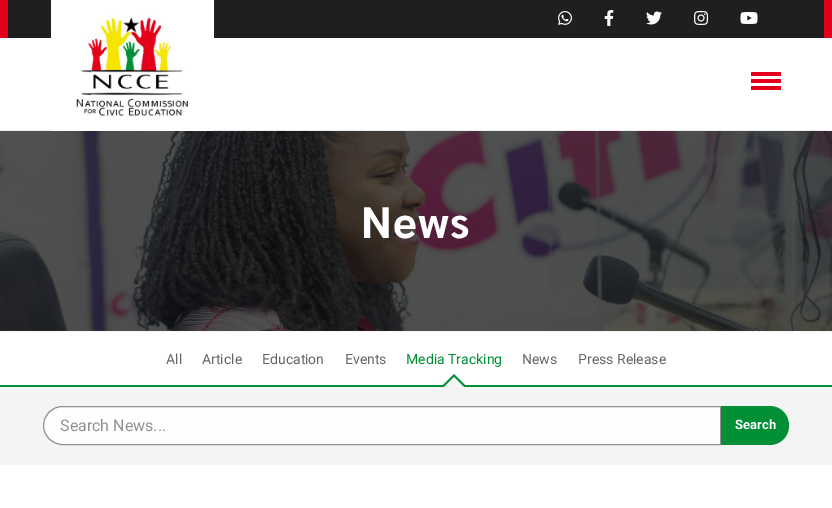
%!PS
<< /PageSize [832 508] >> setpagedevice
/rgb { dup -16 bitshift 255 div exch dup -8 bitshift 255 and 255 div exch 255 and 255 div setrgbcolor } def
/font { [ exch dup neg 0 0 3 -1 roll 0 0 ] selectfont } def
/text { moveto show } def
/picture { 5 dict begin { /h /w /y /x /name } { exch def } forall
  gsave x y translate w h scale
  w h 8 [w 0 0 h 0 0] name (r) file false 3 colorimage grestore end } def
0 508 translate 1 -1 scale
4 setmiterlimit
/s1 { /Roboto-Regular 14 font 16#666666 rgb } def
/s2 { /Roboto-Regular 14 font 16#019036 rgb } def
/s3 { /Roboto-Regular 16 font 16#929292 rgb } def
/s4 { /Roboto-Bold 13 font 16#FEFEFE rgb } def
16#FFFFFF rgb
0 0 832 508 rectfill
16#ECEDEE rgb
0 130 832 1 rectfill
16#1F1F1F rgb
8 0 816 38 rectfill
16#E3001B rgb
824 0 8 38 rectfill
0 0 8 38 rectfill
(pic1.raw) 558 11 14 14 picture
(pic2.raw) 604 10 10 16 picture
(pic3.raw) 646 11 16 14 picture
(pic4.raw) 694 11 15 14 picture
(pic5.raw) 740 12 18 12 picture
(pic6.raw) 51 0 163 131 picture
751 72 30 4 rectfill
751 79 30 4 rectfill
751 86 30 4 rectfill
(pic7.raw) 0 131 832 200 picture
/Sarabun-Bold 44 font
16#FEFEFE rgb
361 238 moveto 1 0 (News) ashow
16#F4F4F4 rgb
0 387 832 78 rectfill
0 331 832 1 rectfill
s1
(All) 166 364 text
(Article) 202 364 text
(Education) 262 364 text
(Events) 345 364 text
s2
(Media Tracking) 406 364 text
466 386 moveto 442 386 lineto 454 374 lineto closepath fill
0 385 832 2 rectfill
16#F4F4F4 rgb
464 387 moveto 444 387 lineto 454 377 lineto closepath fill
s1
(News) 522 364 text
(Press Release) 578 364 text
16#FEFEFE rgb
62.5 406.5 moveto 720.5 406.5 lineto 720.5 444.5 lineto 62.5 444.5 lineto 52 444.5 43.5 436 43.5 425.5 curveto 43.5 415 52 406.5 62.5 406.5 curveto closepath gsave fill grestore
16#929292 rgb
stroke
s3
(Search News...) 60 431 text
16#019036 rgb
721 406 moveto 769.5 406 lineto 780.5 406 789 414.5 789 425.5 curveto 789 436.5 780.5 445 769.5 445 curveto 721 445 lineto closepath fill
s4
(Search) 735 429 text
showpage
